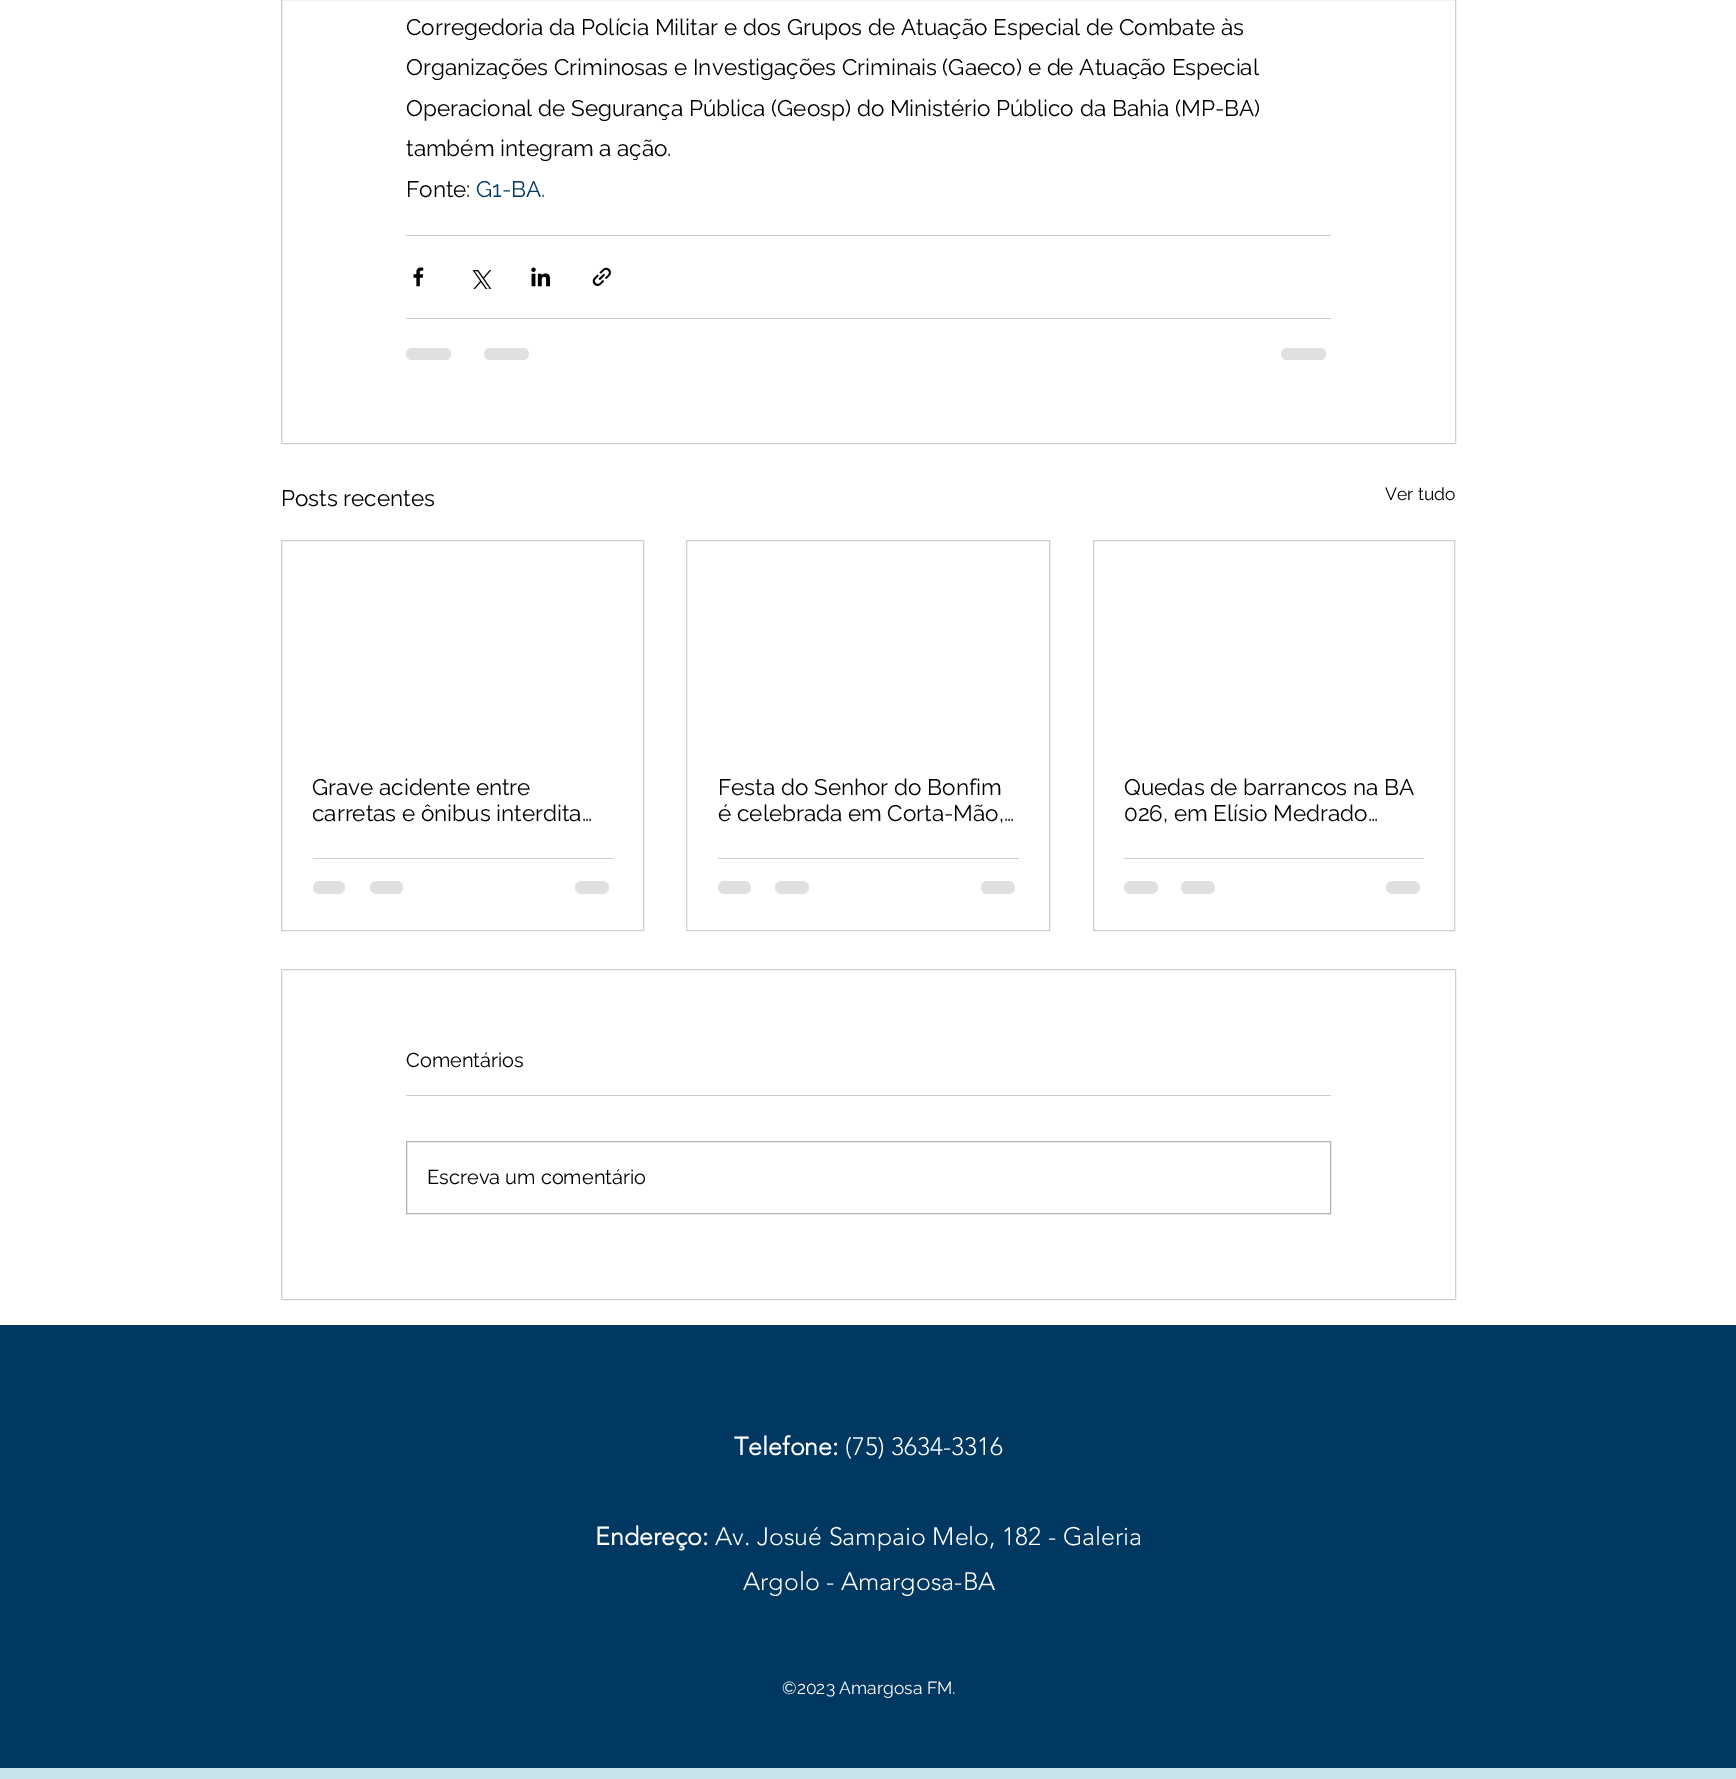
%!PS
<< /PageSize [1736 1779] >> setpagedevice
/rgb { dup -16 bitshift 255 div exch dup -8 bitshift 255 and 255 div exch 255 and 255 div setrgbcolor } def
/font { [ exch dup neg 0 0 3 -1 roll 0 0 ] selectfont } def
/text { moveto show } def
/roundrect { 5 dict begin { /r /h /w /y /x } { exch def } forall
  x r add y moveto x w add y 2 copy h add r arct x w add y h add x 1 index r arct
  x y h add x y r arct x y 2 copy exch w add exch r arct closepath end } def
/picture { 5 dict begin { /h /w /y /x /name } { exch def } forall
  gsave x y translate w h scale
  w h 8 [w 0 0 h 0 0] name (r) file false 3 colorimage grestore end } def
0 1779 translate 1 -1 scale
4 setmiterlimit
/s1 { /Raleway-Regular 22.5 font 16#000000 rgb } def
/s2 { /Raleway-Regular 22.5 font 16#003862 rgb } def
/s3 { /Raleway-Regular 17.5 font 16#000000 rgb } def
/s4 { /Raleway-Regular 20 font 16#000000 rgb } def
/s5 { /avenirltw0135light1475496-Bold 25 font 16#FFFFFF rgb } def
/s6 { /avenirltw0135light1475496-Light 25 font 16#FFFFFF rgb } def
/s7 { /Raleway-Regular 17.5 font 16#FFFFFF rgb } def
16#FFFFFF rgb
0 0 1736 1779 rectfill
16#CFCFCF rgb
281.5 -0.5 1174 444 rectstroke
s1
(Corregedoria da Polícia Militar e dos Grupos de Atuação Especial de Combate às) 406 35 text
(Organizações Criminosas e Investigações Criminais \(Gaeco\) e de Atuação Especial) 406 75 text
(Operacional de Segurança Pública \(Geosp\) do Ministério Público da Bahia \(MP-BA\)) 406 116 text
(também integram a ação.) 406 156 text
(Fonte:) 406 197 text
s2
(G1-BA.) 476 197 text
16#CCCCCC rgb
406 235 925 1 rectfill
(pic1.raw) 413 267 11 20 picture
(pic2.raw) 472 270 19 19 picture
(pic3.raw) 531 267 19 20 picture
(pic4.raw) 592 267 19 19 picture
406 318 925 1 rectfill
16#E0E0E0 rgb
406 348 45 12 6 roundrect fill
484 348 45 12 6 roundrect fill
1281 348 45 12 6 roundrect fill
s1
(Posts recentes) 281 506 text
s3
(Ver tudo) 1385 500 text
16#CFCFCF rgb
281.5 540.5 362 390 rectstroke
s1
(Grave acidente entre) 312 795 text
gsave
313 774 300 52 rectclip
(carretas e ônibus interdita…) 312 821 text
grestore
16#CCCCCC rgb
313 858 300 1 rectfill
16#E0E0E0 rgb
313 881 32 13 6.5 roundrect fill
370 881 33 13 6.5 roundrect fill
575 881 34 13 6.5 roundrect fill
16#CFCFCF rgb
686.5 540.5 363 390 rectstroke
s1
(Festa do Senhor do Bonfim) 718 795 text
(é celebrada em Corta-Mão,…) 718 821 text
16#CCCCCC rgb
718 858 301 1 rectfill
16#E0E0E0 rgb
718 881 33 13 6.5 roundrect fill
775 881 34 13 6.5 roundrect fill
981 881 34 13 6.5 roundrect fill
16#CFCFCF rgb
1093.5 540.5 361 390 rectstroke
s1
(Quedas de barrancos na BA) 1124 795 text
(026, em Elísio Medrado…) 1124 821 text
16#CCCCCC rgb
1124 858 300 1 rectfill
16#E0E0E0 rgb
1124 881 34 13 6.5 roundrect fill
1181 881 34 13 6.5 roundrect fill
1386 881 34 13 6.5 roundrect fill
16#CFCFCF rgb
281.5 969.5 1174 330 rectstroke
s4
(Comentários) 406 1067 text
16#CCCCCC rgb
406 1095 925 1 rectfill
16#B3B3B3 rgb
406.5 1141.5 924 72 rectstroke
s4
(Escreva um comentário) 427 1184 text
16#003862 rgb
0 1325 1736 443 rectfill
s5
(Telefone:) 734 1455 text
s6
(\(75\) 3634-3316) 845 1455 text
s5
(Endereço:) 595 1545 text
s6
(Av. Josué Sampaio Melo, 182 - Galeria) 715 1545 text
(Argolo - Amargosa-BA) 743 1590 text
s7
(©2023 Amargosa FM.) 782 1694 text
16#C7E4EA rgb
0 1768 1736 11 rectfill
showpage
